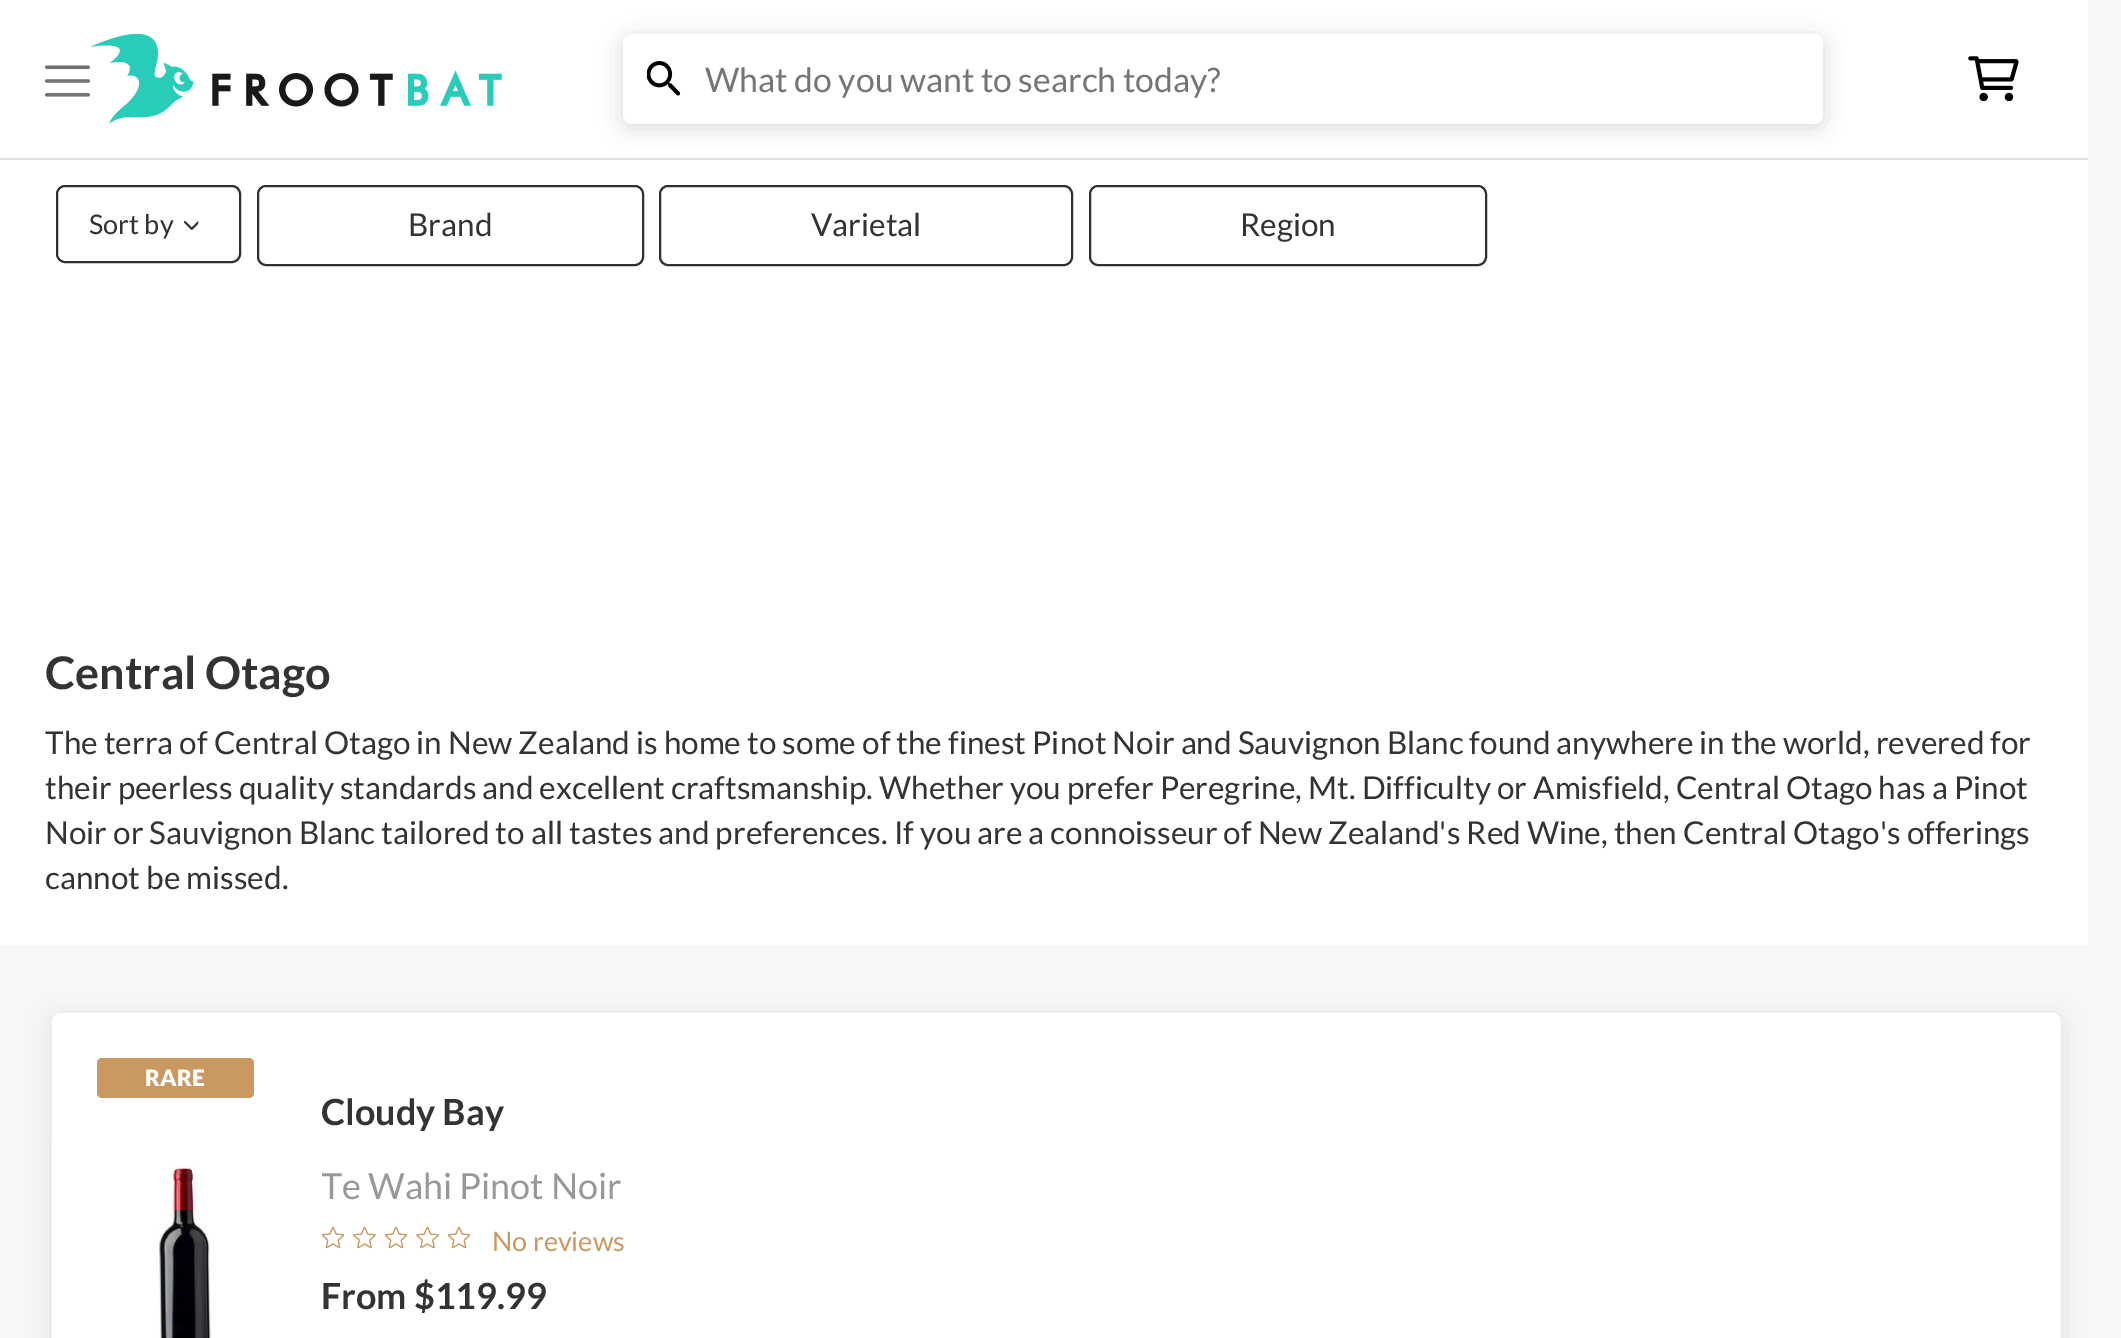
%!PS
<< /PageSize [2121 1338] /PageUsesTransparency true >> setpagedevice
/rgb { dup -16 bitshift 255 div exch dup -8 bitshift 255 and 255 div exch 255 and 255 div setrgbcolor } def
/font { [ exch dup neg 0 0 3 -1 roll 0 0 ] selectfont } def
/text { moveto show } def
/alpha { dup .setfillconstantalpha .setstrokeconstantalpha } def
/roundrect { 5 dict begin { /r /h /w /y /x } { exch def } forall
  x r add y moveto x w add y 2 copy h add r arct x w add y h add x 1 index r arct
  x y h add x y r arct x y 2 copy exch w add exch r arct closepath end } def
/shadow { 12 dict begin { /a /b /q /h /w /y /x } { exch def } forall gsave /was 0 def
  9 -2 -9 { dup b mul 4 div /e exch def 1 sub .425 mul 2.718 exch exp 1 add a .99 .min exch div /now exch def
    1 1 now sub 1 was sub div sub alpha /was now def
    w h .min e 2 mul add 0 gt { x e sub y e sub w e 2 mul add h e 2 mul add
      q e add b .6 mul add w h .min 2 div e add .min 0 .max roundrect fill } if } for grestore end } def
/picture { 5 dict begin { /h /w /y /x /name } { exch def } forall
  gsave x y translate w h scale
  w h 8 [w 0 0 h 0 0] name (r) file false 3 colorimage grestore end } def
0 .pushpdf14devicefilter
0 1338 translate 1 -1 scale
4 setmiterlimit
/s1 { /Lato-Regular 33.75 font 16#757575 rgb } def
/s2 { /Lato-Regular 27 font 16#333333 rgb } def
/s3 { /Lato-Regular 31.5 font 16#333333 rgb } def
/s4 { /Lato-Bold 45 font 16#333333 rgb } def
/s5 { /Lato-Black 22.5 font 16#FFFFFF rgb } def
/s6 { /Lato-Bold 36 font 16#333333 rgb } def
/s7 { /Lato-Regular 36 font 16#989898 rgb } def
/s8 { /Lato-Regular 27 font 16#C89961 rgb } def
16#F5F7F9 rgb
0 0 2121 1338 rectfill
16#FFFFFF rgb
0 0 2088 158 rectfill
16#E0E0E0 rgb
0 158 2088 2 rectfill
(pic1.raw) 45 65 45 32 picture
(pic2.raw) 90 34 412 90 picture
16#FFFFFF rgb
0 160 2088 785 rectfill
16#000000 rgb
623 38 1200 90 9 11 0.15 shadow
16#FFFFFF rgb
623 34 1200 90 9 roundrect fill
(pic3.raw) 647 61 34 35 picture
s1
(What do you want to search today?) 705 92 text
(pic4.raw) 1968 56 51 45 picture
16#303030 rgb
2 setlinewidth
57 186 183 76 8 roundrect stroke
s2
(Sort by) 89 234 text
(pic5.raw) 183 221 16 9 picture
16#303030 rgb
258 186 385 79 8 roundrect stroke
s3
(Brand) 408 236 text
16#303030 rgb
660 186 412 79 8 roundrect stroke
s3
(Varietal) 811 236 text
16#303030 rgb
1090 186 396 79 8 roundrect stroke
s3
(Region) 1240 236 text
s4
(Central Otago) 45 689 text
s3
(The terra of Central Otago in New Zealand is home to some of the finest Pinot Noir and Sauvignon Blanc found anywhere in the world, revered for) 45 754 text
(their peerless quality standards and excellent craftsmanship. Whether you prefer Peregrine, Mt. Difficulty or Amisfield, Central Otago has a Pinot) 45 799 text
(Noir or Sauvignon Blanc tailored to all tastes and preferences. If you are a connoisseur of New Zealand's Red Wine, then Central Otago's offerings) 45 844 text
(cannot be missed.) 45 889 text
16#000000 rgb
52 1017 2009 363 9 11 0.1 shadow
16#FFFFFF rgb
52 1013 2009 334 9 roundrect fill
16#C89961 rgb
97 1058 157 40 5 roundrect fill
s5
(RARE) 145 1086 text
(pic6.raw) 51 1141 160 197 picture
gsave
322 1087 1705 52 rectclip
s6
(Cloudy Bay) 321 1125 text
grestore
gsave
322 1161 1705 45 rectclip
s7
(Te Wahi Pinot Noir) 321 1199 text
grestore
(pic7.raw) 322 1226 22 23 picture
(pic8.raw) 353 1226 23 23 picture
(pic7.raw) 385 1226 22 23 picture
(pic8.raw) 416 1226 23 23 picture
(pic7.raw) 448 1226 22 23 picture
s8
(No reviews) 492 1251 text
s6
(From $119.99) 321 1309 text
.poppdf14devicefilter showpage
